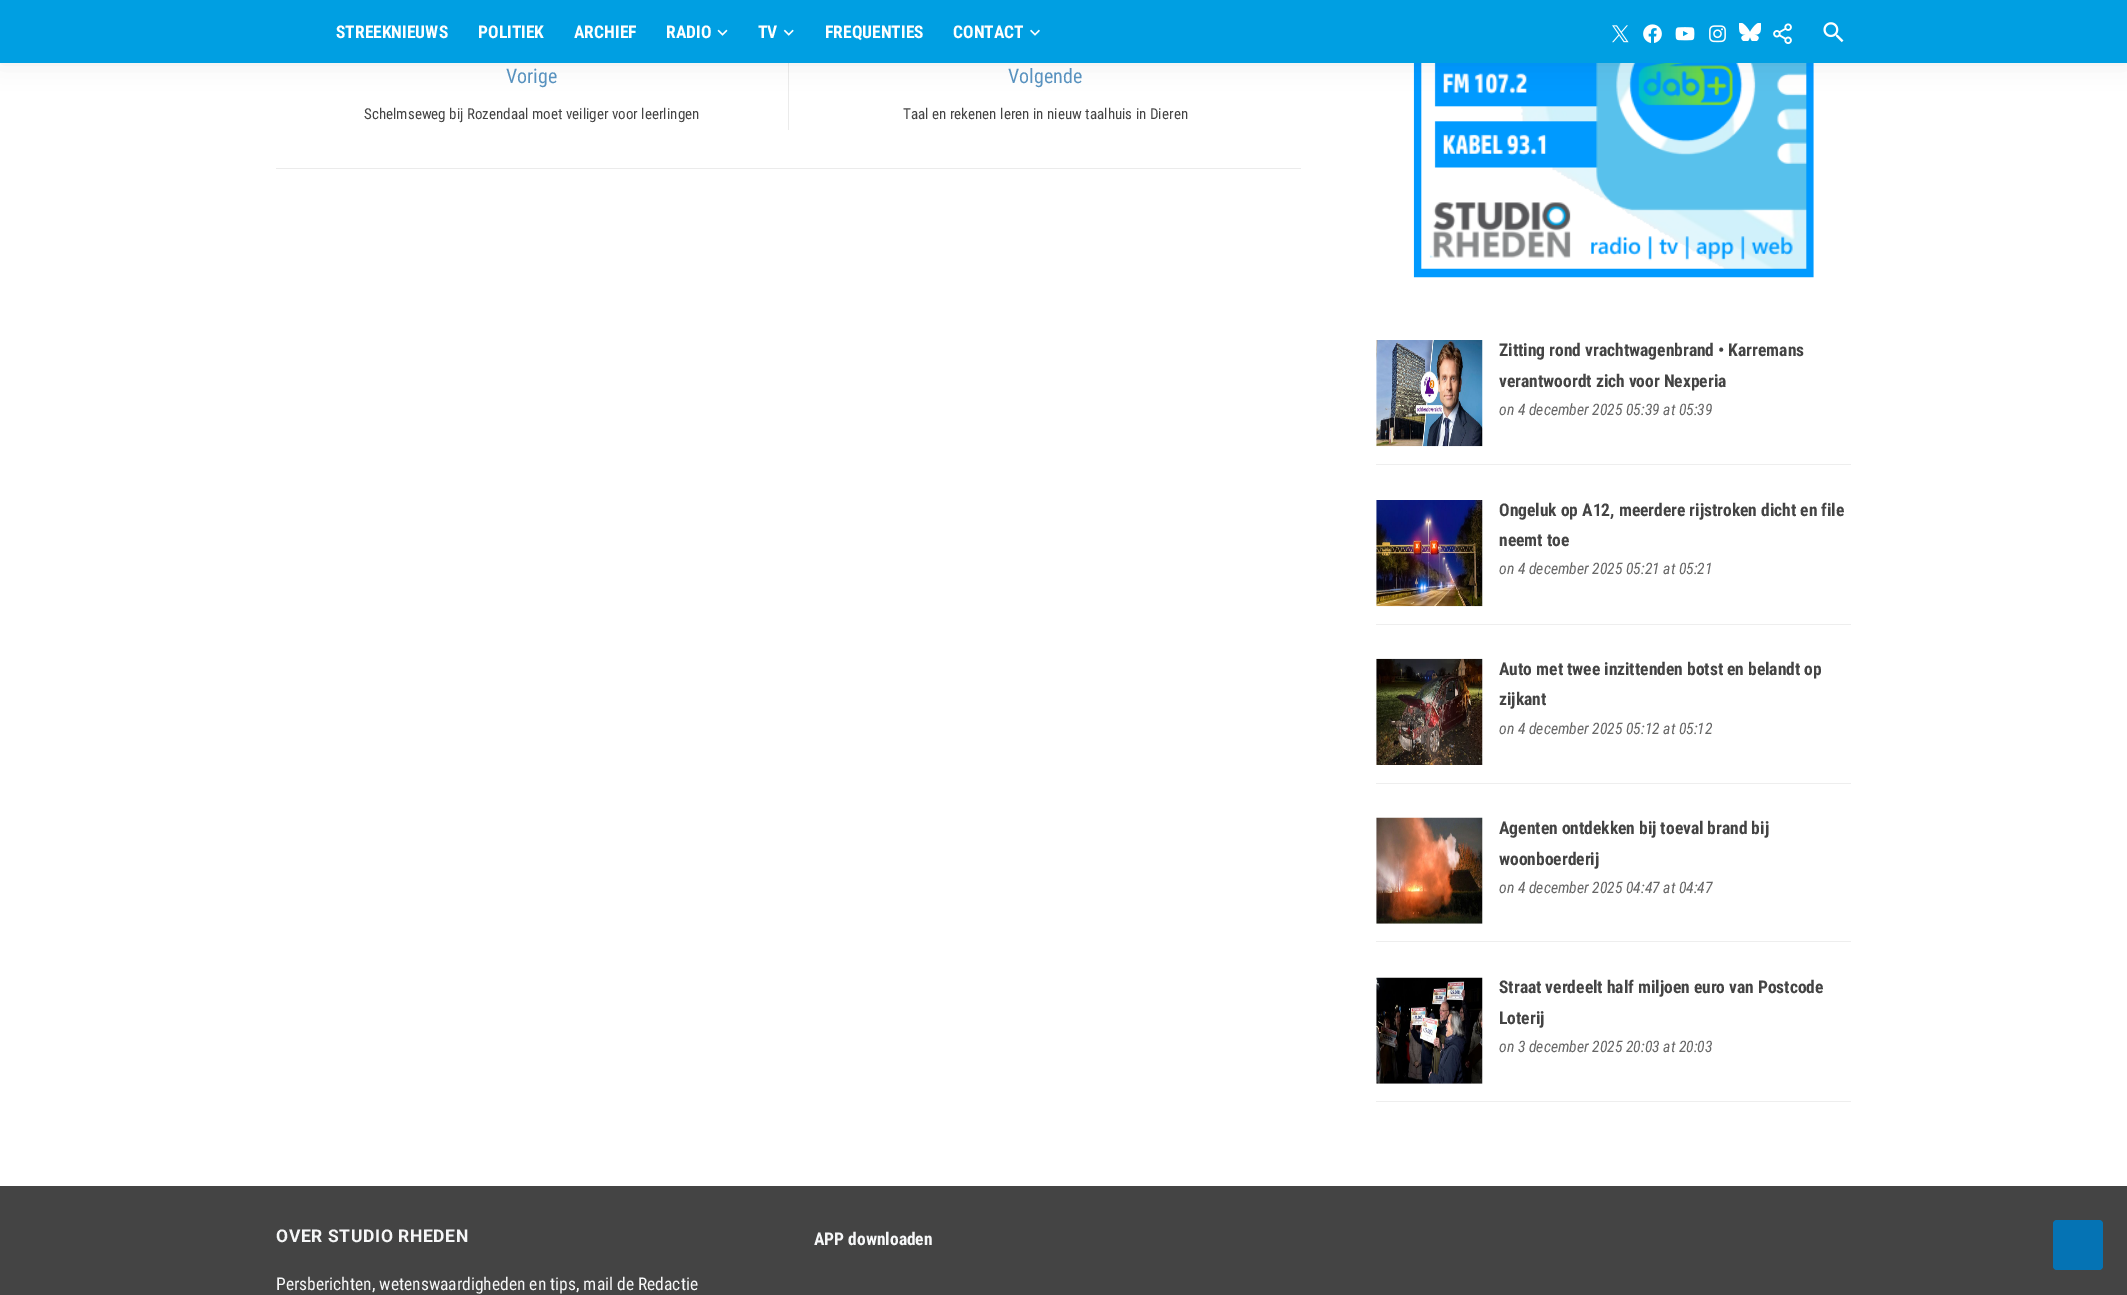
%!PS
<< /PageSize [2127 1295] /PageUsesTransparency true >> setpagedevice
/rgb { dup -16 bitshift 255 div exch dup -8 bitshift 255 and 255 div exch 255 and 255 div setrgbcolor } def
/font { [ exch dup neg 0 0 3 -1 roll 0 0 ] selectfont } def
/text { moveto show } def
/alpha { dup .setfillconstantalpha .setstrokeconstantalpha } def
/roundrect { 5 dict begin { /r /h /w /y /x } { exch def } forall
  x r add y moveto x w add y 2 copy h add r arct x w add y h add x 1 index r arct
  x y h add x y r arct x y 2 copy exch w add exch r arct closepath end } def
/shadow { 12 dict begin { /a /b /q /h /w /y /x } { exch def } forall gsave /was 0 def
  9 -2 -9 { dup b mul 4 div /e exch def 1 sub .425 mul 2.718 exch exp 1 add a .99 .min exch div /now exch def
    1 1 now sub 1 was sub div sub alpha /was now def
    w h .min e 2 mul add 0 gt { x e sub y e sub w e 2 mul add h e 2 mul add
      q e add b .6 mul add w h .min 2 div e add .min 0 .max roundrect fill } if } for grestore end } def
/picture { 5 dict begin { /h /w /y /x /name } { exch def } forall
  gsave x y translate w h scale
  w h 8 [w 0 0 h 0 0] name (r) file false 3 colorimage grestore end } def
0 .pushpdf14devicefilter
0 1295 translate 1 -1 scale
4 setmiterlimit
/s1 { /RobotoCondensed-Bold 17.5 font 16#FFFFFF rgb } def
/s2 { /RobotoCondensed-Regular 20 font 16#5892BF rgb } def
/s3 { /RobotoCondensed-Regular 15 font 16#444444 rgb } def
/s4 { /RobotoCondensed-Bold 17.5 font 16#444444 rgb } def
/s5 { /RobotoCondensed-Italic 15.75 font 16#666666 rgb } def
/s6 { /RobotoCondensed-Regular 17.5 font 16#F6F7F8 rgb } def
/s7 { /RobotoCondensed-Bold 17.5 font 16#F6F7F8 rgb } def
16#FFFFFF rgb
0 0 2127 1295 rectfill
16#EBEBEB rgb
788 59 1 71 rectfill
(pic11.raw) 1413 63 401 215 picture
16#000000 rgb
0 0 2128 63 0 12.5 0.07 shadow
16#009FE2 rgb
0 0 2127 63 rectfill
s1
(STREEKNIEUWS) 336 38 text
(POLITIEK) 478 38 text
(ARCHIEF) 574 38 text
(RADIO) 666 38 text
(pic1.raw) 717 29 11 7 picture
(TV) 758 38 text
(pic2.raw) 783 29 11 7 picture
(FREQUENTIES) 825 38 text
(CONTACT) 953 38 text
(pic3.raw) 1030 29 10 7 picture
(pic4.raw) 1612 25 17 18 picture
(pic5.raw) 1643 24 19 19 picture
(pic6.raw) 1675 27 20 14 picture
(pic7.raw) 1709 25 17 18 picture
(pic8.raw) 1739 23 22 18 picture
(pic9.raw) 1773 23 19 22 picture
(pic10.raw) 1823 22 21 21 picture
16#EBEBEB rgb
276 168 1025 1 rectfill
s2
(Vorige) 506 83 text
s3
(Schelmseweg bij Rozendaal moet veiliger voor leerlingen) 364 119 text
s2
(Volgende) 1008 83 text
s3
(Taal en rekenen leren in nieuw taalhuis in Dieren) 903 119 text
16#EEEEEE rgb
1376 464 475 1 rectfill
(pic12.raw) 1376 340 107 107 picture
s4
(Zitting rond vrachtwagenbrand • Karremans) 1499 356 text
(verantwoordt zich voor Nexperia) 1499 387 text
s5
(on 4 december 2025 05:39 at 05:39) 1499 415 text
16#EEEEEE rgb
1376 624 475 1 rectfill
(pic13.raw) 1376 500 107 107 picture
s4
(Ongeluk op A12, meerdere rijstroken dicht en file) 1499 516 text
(neemt toe) 1499 546 text
s5
(on 4 december 2025 05:21 at 05:21) 1499 574 text
16#EEEEEE rgb
1376 783 475 1 rectfill
(pic14.raw) 1376 658 107 107 picture
s4
(Auto met twee inzittenden botst en belandt op) 1499 675 text
(zijkant) 1499 705 text
s5
(on 4 december 2025 05:12 at 05:12) 1499 734 text
16#EEEEEE rgb
1376 941 475 1 rectfill
(pic15.raw) 1376 817 107 107 picture
s4
(Agenten ontdekken bij toeval brand bij) 1499 834 text
(woonboerderij) 1499 865 text
s5
(on 4 december 2025 04:47 at 04:47) 1499 893 text
16#EEEEEE rgb
1376 1101 475 1 rectfill
(pic16.raw) 1376 977 107 107 picture
s4
(Straat verdeelt half miljoen euro van Postcode) 1499 993 text
(Loterij) 1499 1024 text
s5
(on 3 december 2025 20:03 at 20:03) 1499 1052 text
16#444444 rgb
0 1186 2127 109 rectfill
/Roboto-Bold 17.5 font
16#F6F7F8 rgb
276 1242 moveto 0.6 0 (OVER STUDIO RHEDEN) ashow
s6
(Persberichten, wetenswaardigheden en tips, mail de Redactie) 276 1290 text
s7
(APP downloaden) 814 1245 text
16#0573B4 rgb
2053 1220 50 50 4 roundrect fill
.poppdf14devicefilter showpage
